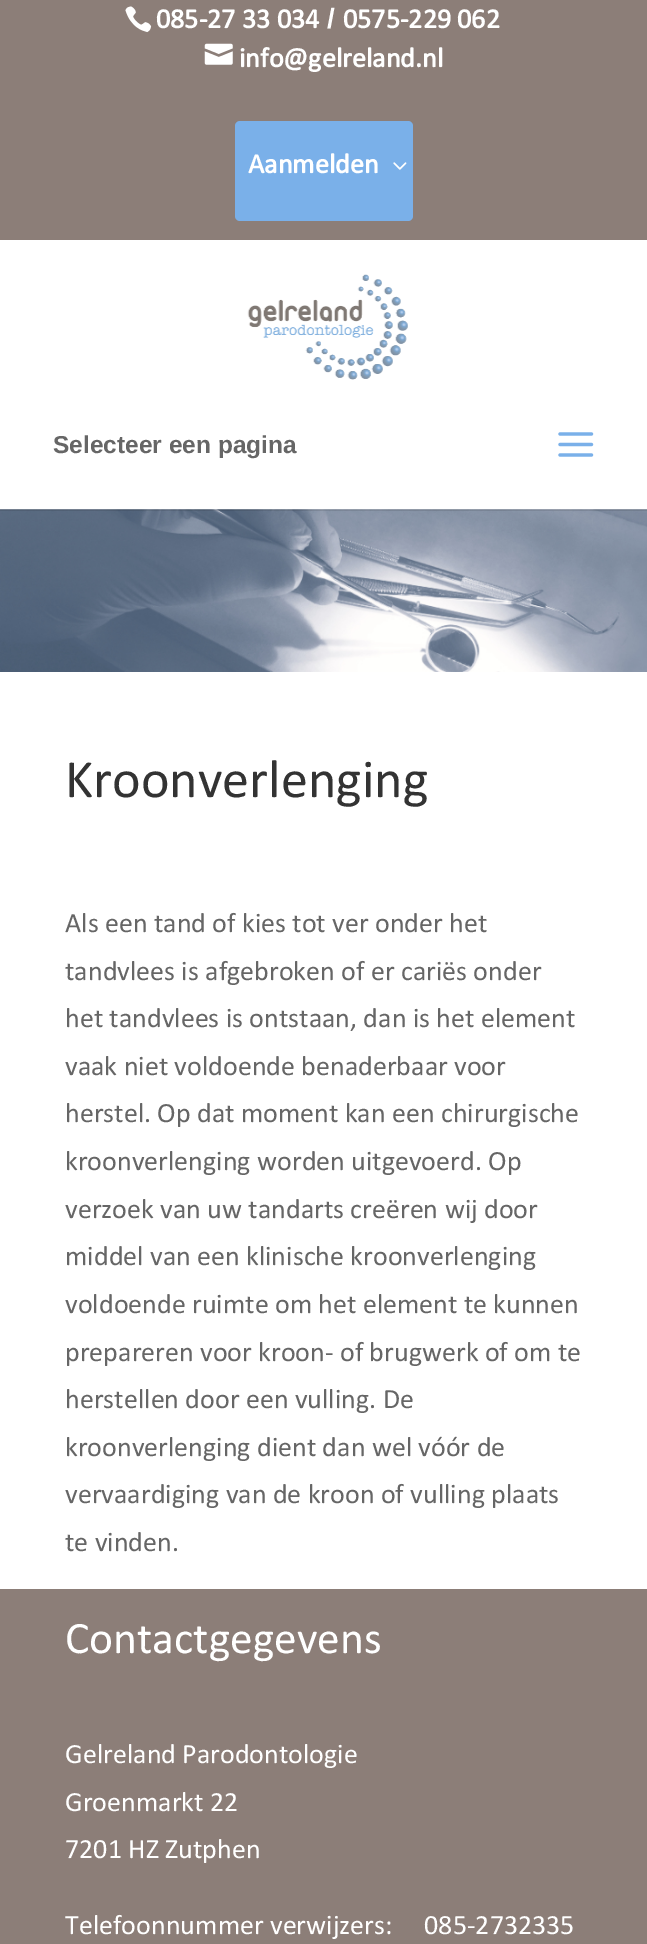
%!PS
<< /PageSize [647 1944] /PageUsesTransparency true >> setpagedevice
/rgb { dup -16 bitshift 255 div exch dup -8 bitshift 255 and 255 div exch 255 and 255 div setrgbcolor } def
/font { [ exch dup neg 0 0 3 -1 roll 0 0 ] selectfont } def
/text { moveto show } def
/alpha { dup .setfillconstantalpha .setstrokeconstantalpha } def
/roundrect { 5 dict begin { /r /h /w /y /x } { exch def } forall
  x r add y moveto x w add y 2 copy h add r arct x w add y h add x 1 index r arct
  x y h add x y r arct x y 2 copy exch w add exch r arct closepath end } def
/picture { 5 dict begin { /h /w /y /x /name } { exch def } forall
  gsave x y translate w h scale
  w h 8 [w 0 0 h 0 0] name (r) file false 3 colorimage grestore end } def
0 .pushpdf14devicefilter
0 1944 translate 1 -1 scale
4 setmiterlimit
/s1 { /Calibri-Bold 28 font 16#FFFFFF rgb } def
/s2 { /LiberationSans-Bold 28 font 16#FFFFFF rgb } def
/s3 { /LiberationSans-Bold 24.5 font 16#666666 rgb } def
/s4 { /Calibri-Regular 54.25 font 16#333333 rgb } def
/s5 { /Calibri-Regular 28 font 16#666666 rgb } def
/s6 { /Calibri-Regular 45.5 font 16#FFFFFF rgb } def
/s7 { /Calibri-Regular 28 font 16#FFFFFF rgb } def
16#8C7E78 rgb
0 0 647 1944 rectfill
(pic1.raw) 125 6 27 27 picture
s1
(085-27 33 034) 156 28 text
s2
(/) 327 28 text
s1
(0575-229 062) 343 28 text
(pic2.raw) 204 43 29 22 picture
(info@gelreland.nl) 239 67 text
16#7AB0E9 rgb
235 121 178 100 5 roundrect fill
s1
(Aanmelden) 248 173 text
(pic3.raw) 393 162 14 8 picture
(pic6.raw) 0 509 647 163 picture
0.1 alpha
16#000000 rgb
0 509 moveto 0 511 lineto 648 511 lineto 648 242 lineto 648 509 lineto closepath fill
1 alpha
16#FFFFFF rgb
0 240 647 269 rectfill
(pic4.raw) 247 274 161 106 picture
s3
(Selecteer een pagina) 53 453 text
(pic5.raw) 558 432 36 25 picture
16#FFFFFF rgb
0 672 647 917 rectfill
s4
(Kroonverlenging) 65 797 text
s5
(Als een tand of kies tot ver onder het) 65 932 text
(tandvlees is afgebroken of er cariës onder) 65 980 text
(het tandvlees is ontstaan, dan is het element) 65 1027 text
(vaak niet voldoende benaderbaar voor) 65 1075 text
(herstel. Op dat moment kan een chirurgische) 65 1122 text
(kroonverlenging worden uitgevoerd. Op) 65 1170 text
(verzoek van uw tandarts creëren wij door) 65 1218 text
(middel van een klinische kroonverlenging) 65 1265 text
(voldoende ruimte om het element te kunnen) 65 1313 text
(prepareren voor kroon- of brugwerk of om te) 65 1361 text
(herstellen door een vulling. De) 65 1408 text
(kroonverlenging dient dan wel vóór de) 65 1456 text
(vervaardiging van de kroon of vulling plaats) 65 1503 text
(te vinden.) 65 1551 text
s6
(Contactgegevens) 65 1653 text
s7
(Gelreland Parodontologie) 65 1763 text
(Groenmarkt 22) 65 1811 text
(7201 HZ Zutphen) 65 1858 text
(Telefoonnummer verwijzers:     085-2732335) 65 1934 text
.poppdf14devicefilter showpage
